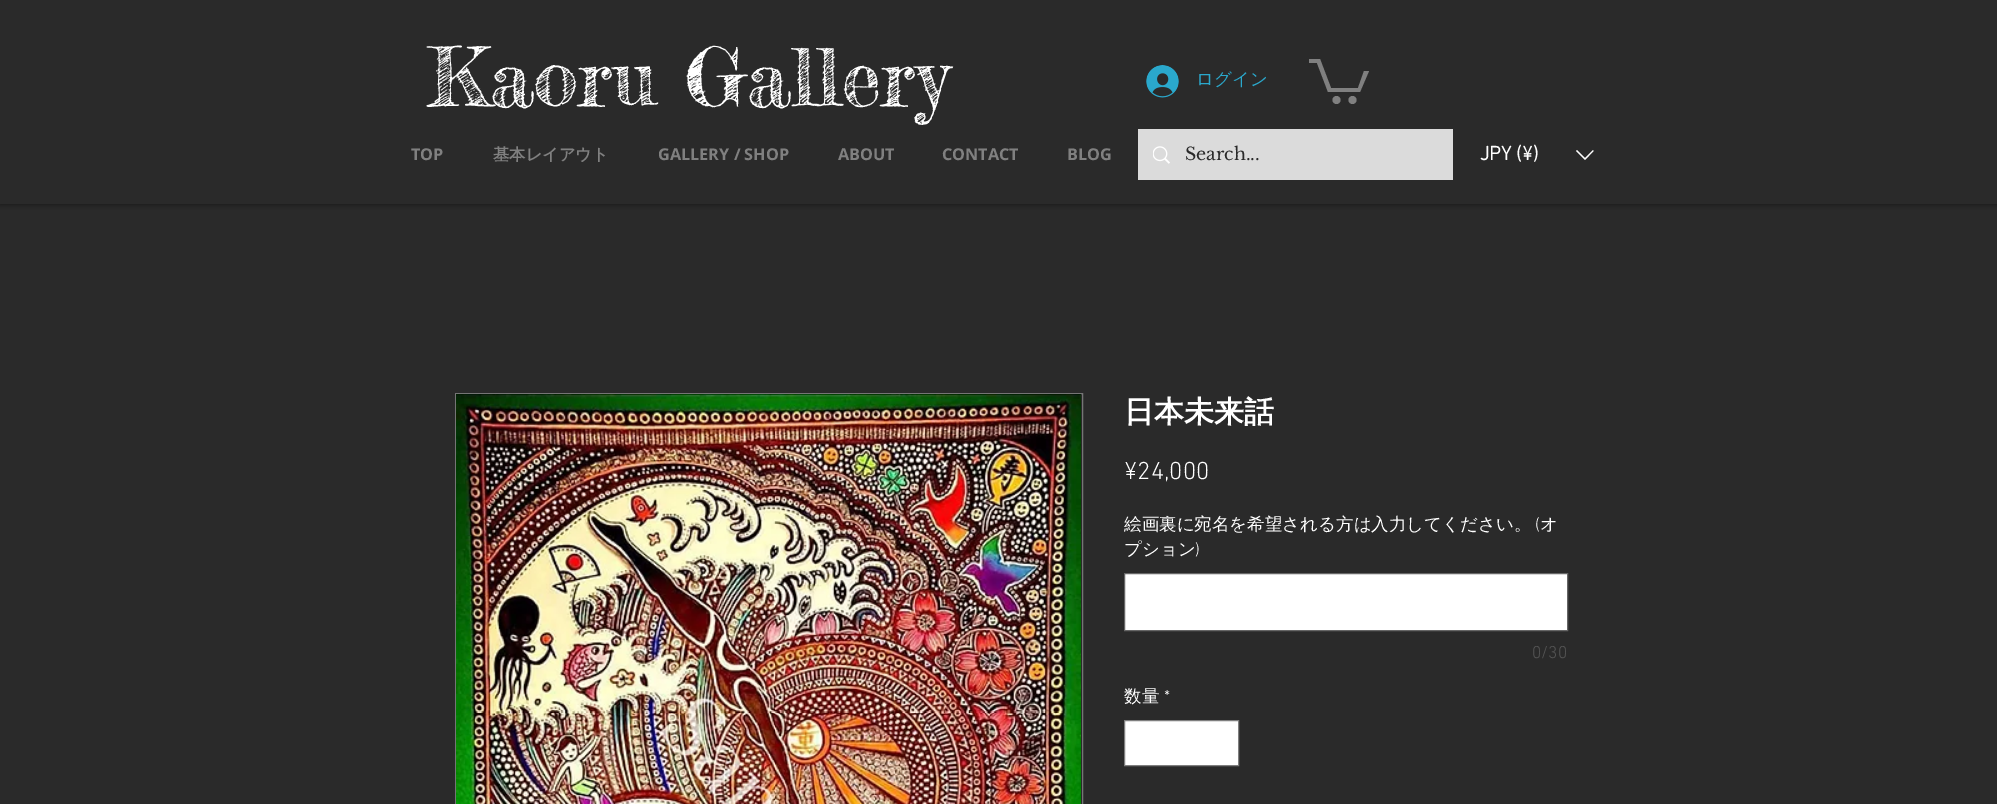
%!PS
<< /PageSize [1997 804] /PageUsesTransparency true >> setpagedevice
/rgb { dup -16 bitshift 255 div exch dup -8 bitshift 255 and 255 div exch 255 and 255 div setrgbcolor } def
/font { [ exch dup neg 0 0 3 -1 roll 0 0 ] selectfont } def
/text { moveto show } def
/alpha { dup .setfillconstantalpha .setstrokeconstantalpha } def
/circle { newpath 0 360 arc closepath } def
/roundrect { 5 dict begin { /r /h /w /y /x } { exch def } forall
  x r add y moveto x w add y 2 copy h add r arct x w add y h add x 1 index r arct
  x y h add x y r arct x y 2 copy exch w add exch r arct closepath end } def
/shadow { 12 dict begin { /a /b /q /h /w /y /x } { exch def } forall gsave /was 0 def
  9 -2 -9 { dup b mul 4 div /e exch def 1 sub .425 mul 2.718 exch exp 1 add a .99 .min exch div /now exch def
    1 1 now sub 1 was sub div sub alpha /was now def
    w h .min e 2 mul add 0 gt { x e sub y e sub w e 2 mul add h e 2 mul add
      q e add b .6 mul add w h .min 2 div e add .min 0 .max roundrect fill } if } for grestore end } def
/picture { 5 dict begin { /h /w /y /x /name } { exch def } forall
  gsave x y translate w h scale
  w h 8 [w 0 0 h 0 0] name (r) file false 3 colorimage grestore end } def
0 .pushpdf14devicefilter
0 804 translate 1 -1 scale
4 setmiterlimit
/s1 { /FrederickatheGreat-Regular 80 font 16#FFFFFF rgb } def
/s2 { /WenQuanYiZenHei-Medium 17.5 font 16#2AA8CC rgb } def
/s3 { /OpenSans-Bold 16.25 font 16#808080 rgb } def
/s4 { /WenQuanYiZenHei-Bold 16.25 font 16#808080 rgb } def
/s5 { /LibreBaskerville-Regular 17.5 font 16#2A2A2A rgb } def
/s6 { /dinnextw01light-Bold 20 font 16#FFFFFF rgb } def
/s7 { /WenQuanYiZenHei-Bold 30 font 16#FFFFFF rgb } def
/s8 { /dinnextw01light-Light 25 font 16#FFFFFF rgb } def
/s9 { /WenQuanYiZenHei-Medium 17.5 font 16#FFFFFF rgb } def
/s10 { /dinnextw01light-Light 17.5 font 16#FFFFFF rgb } def
/s11 { /dinnextw01light-Light 17.5 font 16#555555 rgb } def
16#2A2A2A rgb
0 0 1997 804 rectfill
16#000000 rgb
0 0 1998 204 0 3 0.5 shadow
16#2A2A2A rgb
0 0 1997 204 rectfill
s1
(Kaoru Gallery) 428 106 text
(pic1.raw) 1146 65 33 33 picture
s2
(ログイン) 1196 85 text
16#808080 rgb
1369 71 moveto 1360 92 lineto 1328 92 lineto 1317 63 lineto 1309 63 lineto 1309 59 lineto 1320 59 lineto 1331 88 lineto 1358 88 lineto 1364 71 lineto fill
1352.5 100 4 circle fill
1336.5 100 4 circle fill
s3
(TOP) 411 160 text
s4
(基本レイアウト) 493 160 text
s3
(GALLERY / SHOP) 658 160 text
(ABOUT) 838 160 text
(CONTACT) 942 160 text
(BLOG) 1067 160 text
16#DBDBDB rgb
1138 129 315 51 rectfill
(pic2.raw) 1153 146 17 18 picture
s5
(Search...) 1185 160 text
s6
(JPY \(¥\)) 1480 160 text
1593 150 moveto 1593.5 151 lineto 1585 160 lineto 1576 151 lineto 1577 150 lineto 1585 158 lineto closepath eofill
16#757575 rgb
455.5 393.5 627 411 rectstroke
(pic3.raw) 456 394 625 410 picture
s7
(日本未来話) 1124 422 text
s8
(¥24,000) 1124 479 text
s9
(絵画裏に宛名を希望される方は入力してください。) 1124 530 text
s10
(\() 1535 530 text
s9
(オ) 1540 530 text
(プション) 1124 555 text
s10
(\)) 1195 555 text
1124.5 573.5 moveto 1567.5 573.5 lineto 1567.5 630.5 lineto 1124.5 630.5 lineto closepath gsave fill grestore
16#666666 rgb
stroke
s11
(0/30) 1532 658 text
s9
(数量) 1124 702 text
s10
(*) 1164 702 text
1124.5 720.5 moveto 1238.5 720.5 lineto 1238.5 765.5 lineto 1124.5 765.5 lineto closepath gsave fill grestore
16#7F7F7F rgb
stroke
.poppdf14devicefilter showpage
